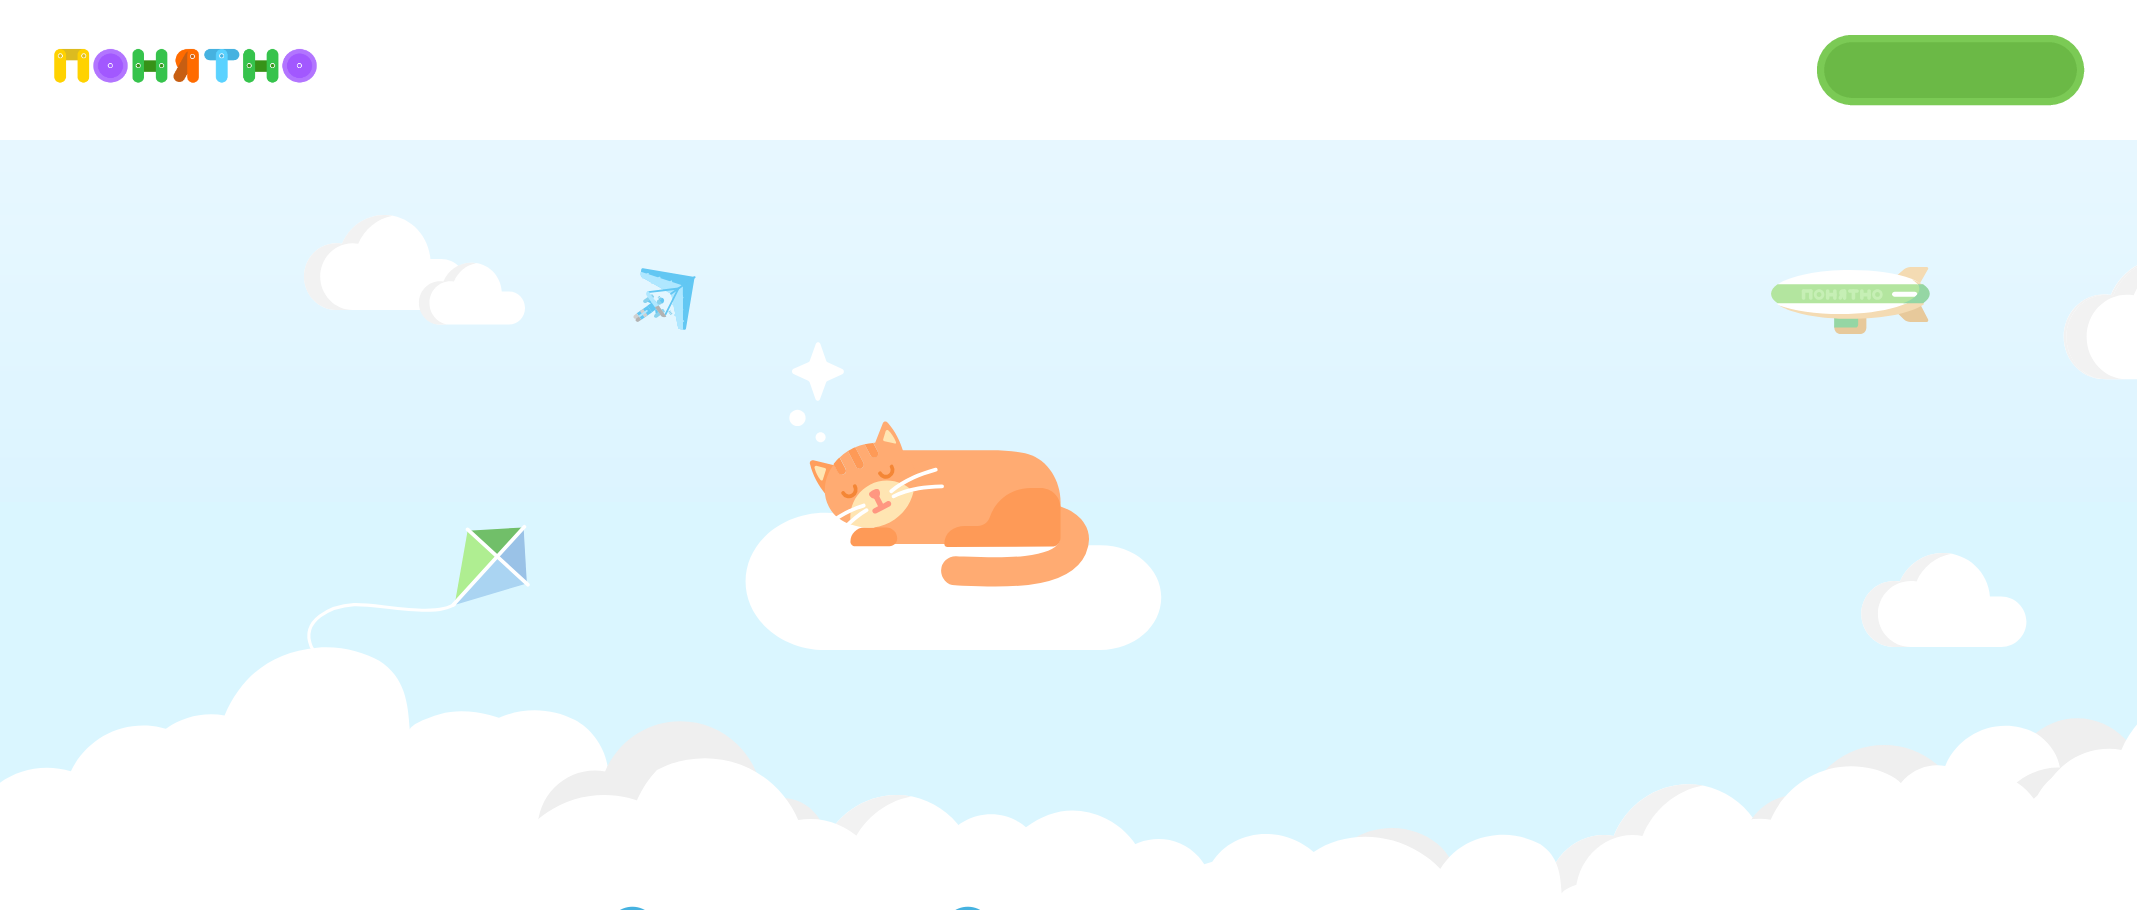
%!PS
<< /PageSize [2137 910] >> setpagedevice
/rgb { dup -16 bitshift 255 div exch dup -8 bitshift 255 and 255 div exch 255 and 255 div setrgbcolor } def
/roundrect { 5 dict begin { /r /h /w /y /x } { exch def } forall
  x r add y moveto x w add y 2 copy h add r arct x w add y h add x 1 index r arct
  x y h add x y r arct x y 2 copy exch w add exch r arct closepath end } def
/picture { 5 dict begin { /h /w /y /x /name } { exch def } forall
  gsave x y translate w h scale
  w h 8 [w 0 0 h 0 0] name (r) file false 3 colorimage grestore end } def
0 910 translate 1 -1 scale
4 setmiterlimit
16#DAF6FF rgb
0 0 2137 910 rectfill
16#FFFFFF rgb
0 0 2137 140 rectfill
(pic1.raw) 54 48 263 35 picture
16#6BB946 rgb
1820.5 38.5 260 63 31.5 roundrect gsave fill grestore
16#7BCA55 rgb
7 setlinewidth
stroke
gsave 0 140 moveto 2137 140 lineto 2137 487 lineto 0 487 lineto closepath clip newpath
<< /ShadingType 2 /ColorSpace /DeviceRGB /Coords [1253 -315 1253 502] /Extend [true true] /Function << /FunctionType 2 /Domain [0 1] /C0 [0.973 0.992 1] /C1 [0.863 0.957 1] /N 1 >> >> shfill grestore
(pic2.raw) 0 215 2137 695 picture
(pic3.raw) 620 906 360 4 picture
showpage
